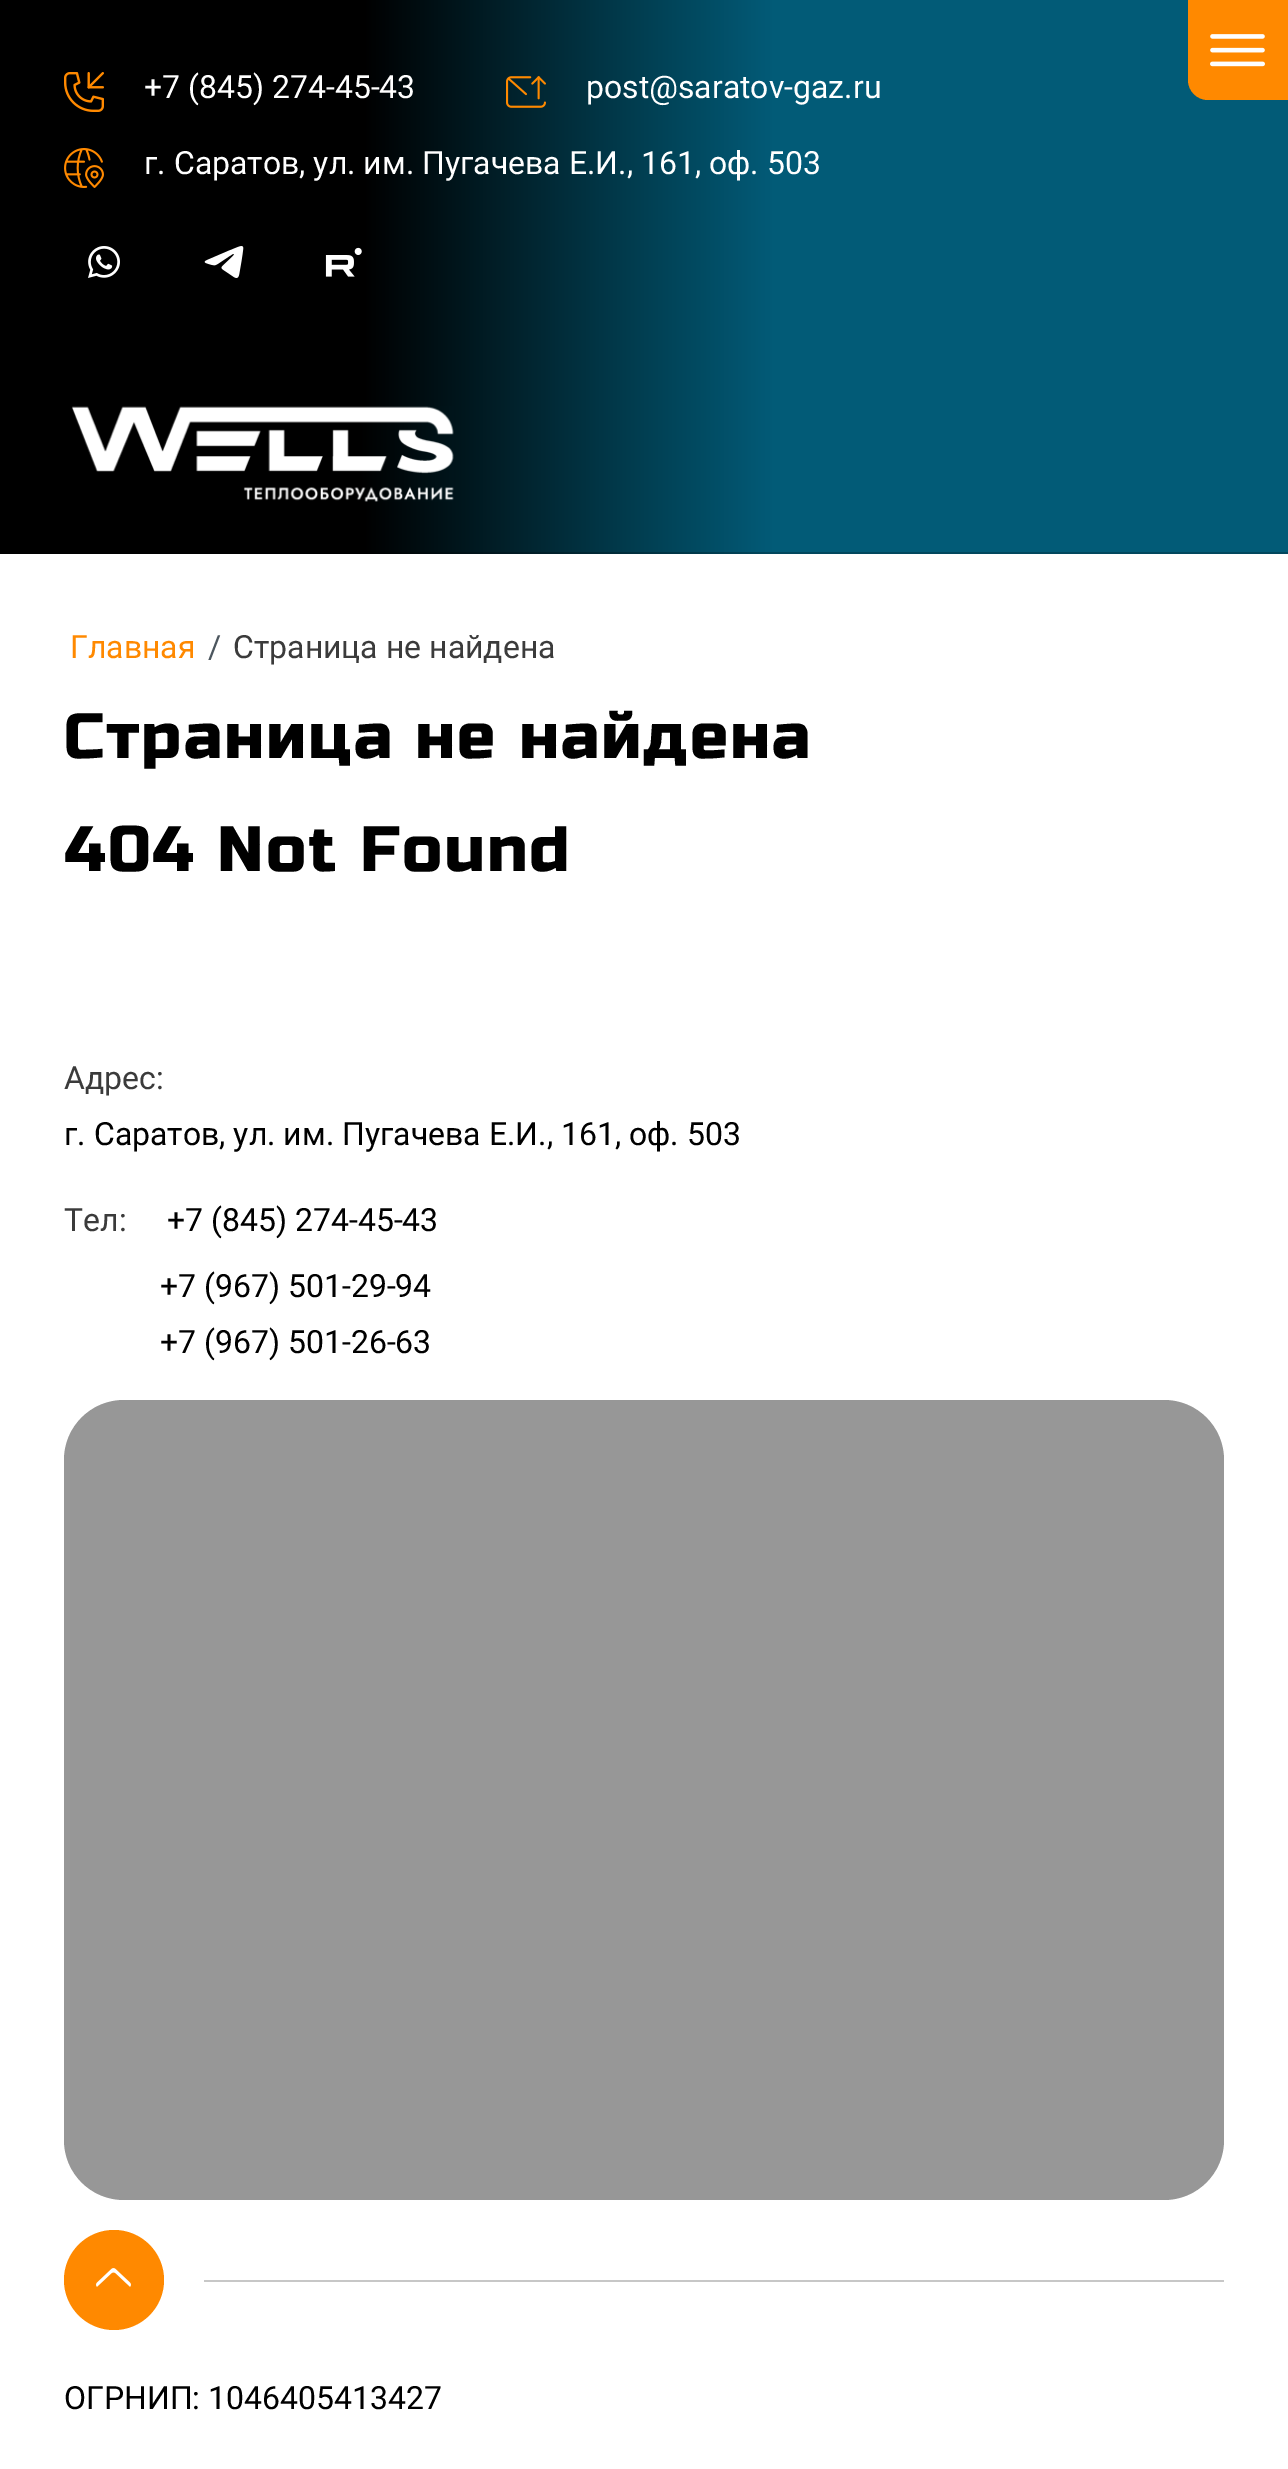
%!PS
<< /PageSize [1288 2469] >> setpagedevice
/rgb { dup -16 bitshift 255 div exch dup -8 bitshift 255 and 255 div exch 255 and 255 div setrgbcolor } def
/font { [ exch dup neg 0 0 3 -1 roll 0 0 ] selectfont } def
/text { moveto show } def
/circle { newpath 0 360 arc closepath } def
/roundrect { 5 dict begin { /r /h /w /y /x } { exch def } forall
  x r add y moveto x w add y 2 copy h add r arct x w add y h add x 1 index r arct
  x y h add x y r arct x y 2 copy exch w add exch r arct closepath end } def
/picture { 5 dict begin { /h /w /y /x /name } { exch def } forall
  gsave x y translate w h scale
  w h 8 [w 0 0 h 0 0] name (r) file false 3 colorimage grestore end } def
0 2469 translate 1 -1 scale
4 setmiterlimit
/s1 { /Roboto-Regular 32 font 16#FFFFFF rgb } def
/s2 { /Roboto-Regular 32 font 16#FF8900 rgb } def
/s3 { /Roboto-Regular 32 font 16#4C565E rgb } def
/s4 { /Roboto-Regular 32 font 16#3B3B3B rgb } def
/s5 { /Roboto-Regular 32 font 16#000000 rgb } def
16#FFFFFF rgb
0 0 1288 2469 rectfill
gsave 0 0 moveto 1288 0 lineto 1288 552 lineto 0 552 lineto closepath clip newpath
<< /ShadingType 2 /ColorSpace /DeviceRGB /Coords [0 276 1288 276] /Extend [true true] /Function << /FunctionType 3 /Domain [0 1] /Functions [<< /FunctionType 2 /Domain [0 1] /C0 [0 0 0] /C1 [0 0 0] /N 1 >> << /FunctionType 2 /Domain [0 1] /C0 [0 0 0] /C1 [0.008 0.357 0.467] /N 1 >> << /FunctionType 2 /Domain [0 1] /C0 [0.008 0.357 0.467] /C1 [0.008 0.357 0.467] /N 1 >>] /Bounds [0.28 0.6] /Encode [0 1 0 1 0 1] >> >> shfill grestore
16#FF8900 rgb
1188 0 moveto 1288 0 lineto 1288 100 lineto 1208 100 lineto 1197 100 1188 91 1188 80 curveto closepath fill
(pic1.raw) 1210 34 55 33 picture
gsave 0 552 moveto 1288 552 lineto 1288 554 lineto 0 554 lineto closepath clip newpath
<< /ShadingType 2 /ColorSpace /DeviceRGB /Coords [0 276 1288 276] /Extend [true true] /Function << /FunctionType 3 /Domain [0 1] /Functions [<< /FunctionType 2 /Domain [0 1] /C0 [0 0 0] /C1 [0 0 0] /N 1 >> << /FunctionType 2 /Domain [0 1] /C0 [0 0 0] /C1 [0.008 0.278 0.365] /N 1 >> << /FunctionType 2 /Domain [0 1] /C0 [0.008 0.278 0.365] /C1 [0.008 0.278 0.365] /N 1 >>] /Bounds [0.28 0.6] /Encode [0 1 0 1 0 1] >> >> shfill grestore
(pic2.raw) 64 72 40 40 picture
s1
(+7 \(845\) 274-45-43) 144 98 text
(pic3.raw) 506 76 40 32 picture
(post@saratov-gaz.ru) 586 98 text
(pic4.raw) 64 148 40 40 picture
(г. Саратов, ул. им. Пугачева Е.И., 161, оф. 503) 144 174 text
(pic5.raw) 88 246 32 32 picture
(pic6.raw) 204 246 40 32 picture
(pic7.raw) 325 247 37 30 picture
(pic8.raw) 71 406 383 96 picture
s2
(Главная) 70 658 text
s3
(/) 208 658 text
s4
(Страница не найдена) 233 658 text
/RussoOne-Regular 64 font
16#000000 rgb
64 758 moveto 2 0 (Страница не найдена) ashow
64 871 moveto 2 0 (404 Not Found) ashow
s4
(Адрес:) 64 1089 text
s5
(г. Саратов, ул. им. Пугачева Е.И., 161, оф. 503) 64 1145 text
s4
(Тел:) 64 1231 text
s5
(+7 \(845\) 274-45-43) 167 1231 text
(+7 \(967\) 501-29-94) 160 1297 text
(+7 \(967\) 501-26-63) 160 1353 text
16#979797 rgb
64 1400 1160 800 60 roundrect fill
16#FF8900 rgb
114 2280 50 circle fill
(pic9.raw) 96 2268 35 19 picture
16#C7C7C7 rgb
204 2280 1020 2 rectfill
s5
(ОГРНИП: 1046405413427) 64 2409 text
showpage
